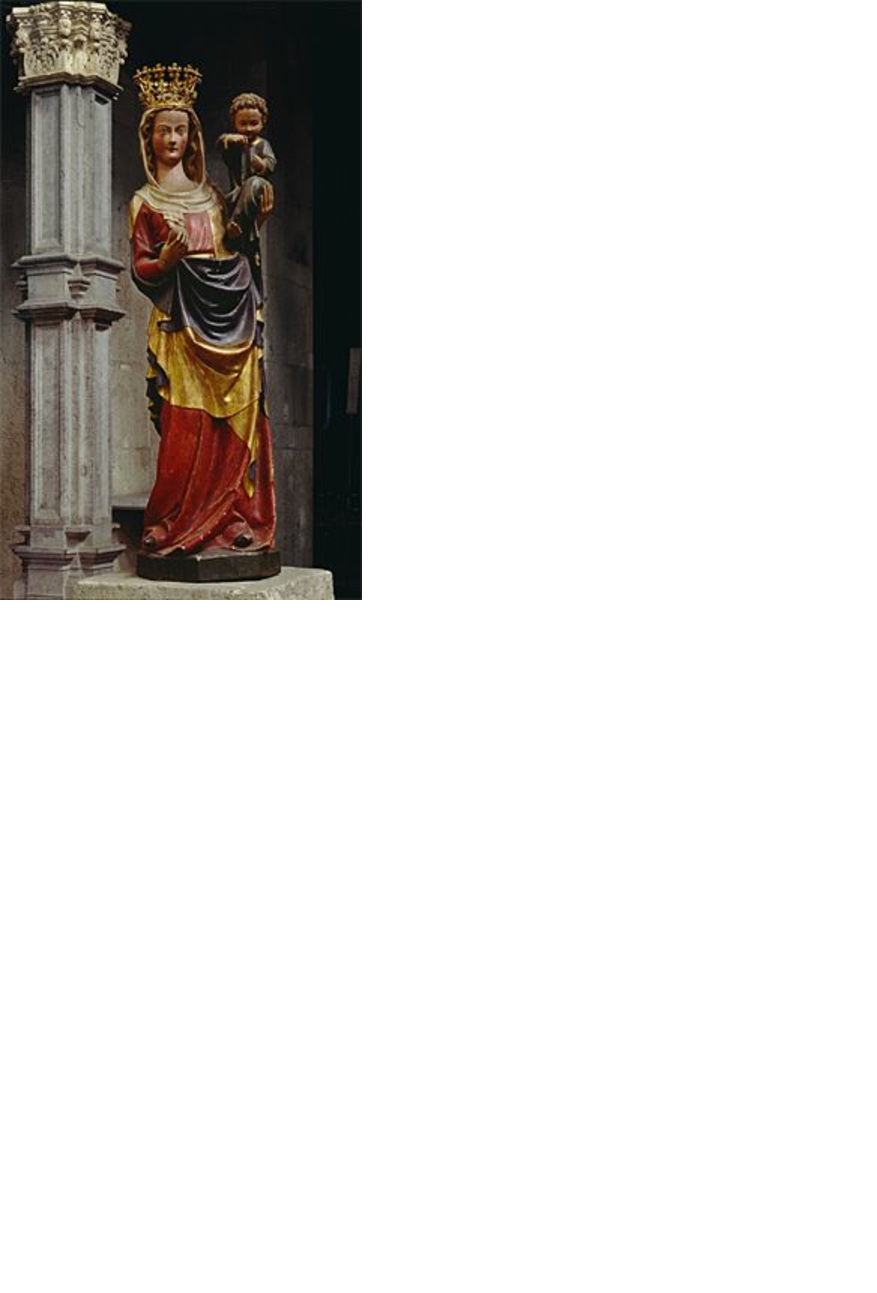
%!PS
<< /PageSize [877 1293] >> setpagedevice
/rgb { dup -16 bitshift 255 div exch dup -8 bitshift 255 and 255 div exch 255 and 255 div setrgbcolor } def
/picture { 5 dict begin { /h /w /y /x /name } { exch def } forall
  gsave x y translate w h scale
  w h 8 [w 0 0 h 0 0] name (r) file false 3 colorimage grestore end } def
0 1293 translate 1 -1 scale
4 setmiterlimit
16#FFFFFF rgb
0 0 877 1293 rectfill
(pic1.raw) 0 0 362 600 picture
showpage
